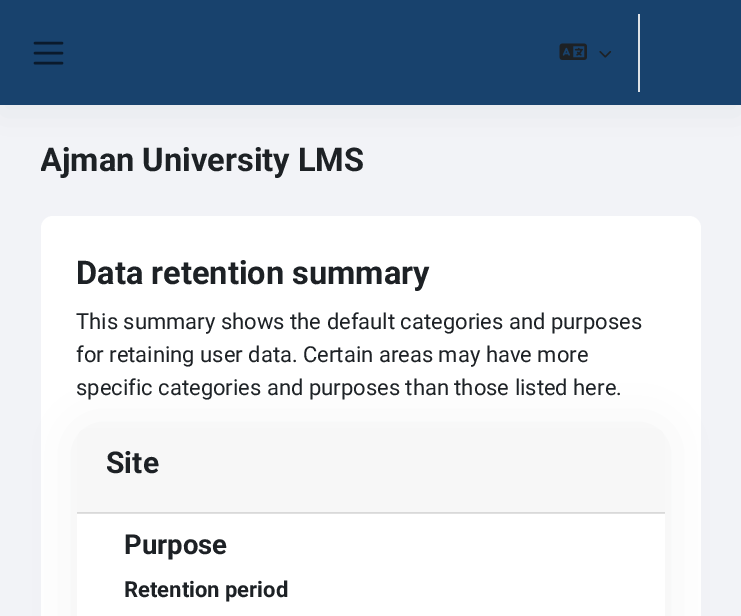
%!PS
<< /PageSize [741 616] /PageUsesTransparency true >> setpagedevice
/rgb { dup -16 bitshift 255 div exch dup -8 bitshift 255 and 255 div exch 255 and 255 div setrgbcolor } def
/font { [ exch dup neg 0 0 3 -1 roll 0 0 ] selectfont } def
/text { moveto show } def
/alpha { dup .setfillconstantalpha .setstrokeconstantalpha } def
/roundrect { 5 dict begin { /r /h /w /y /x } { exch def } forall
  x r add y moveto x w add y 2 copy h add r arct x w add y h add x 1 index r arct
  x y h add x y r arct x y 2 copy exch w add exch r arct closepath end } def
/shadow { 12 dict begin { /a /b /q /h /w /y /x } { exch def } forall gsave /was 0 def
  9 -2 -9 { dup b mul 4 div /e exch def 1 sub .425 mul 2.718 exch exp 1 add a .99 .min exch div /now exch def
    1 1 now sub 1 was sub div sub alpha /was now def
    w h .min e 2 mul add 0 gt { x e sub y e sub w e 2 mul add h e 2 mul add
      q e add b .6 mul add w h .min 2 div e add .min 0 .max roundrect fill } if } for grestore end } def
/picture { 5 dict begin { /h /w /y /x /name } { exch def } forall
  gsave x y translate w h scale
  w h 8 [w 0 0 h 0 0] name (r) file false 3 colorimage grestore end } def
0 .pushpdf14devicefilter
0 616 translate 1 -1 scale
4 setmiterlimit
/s1 { /Roboto-Bold 32.6 font 16#1D2125 rgb } def
/s2 { /Roboto-Regular 22 font 16#1D2125 rgb } def
/s3 { /Roboto-Bold 30 font 16#1D2125 rgb } def
/s4 { /Roboto-Bold 27.5 font 16#1D2125 rgb } def
/s5 { /Roboto-Bold 22 font 16#1D2125 rgb } def
16#F2F3F7 rgb
0 0 741 616 rectfill
16#8C98A4 rgb
0 9 741 105 0 18 0.13 shadow
16#18426D rgb
0 0 741 105 rectfill
16#0A1A2C rgb
2.5 setlinewidth
1 setlinecap
35 43 moveto 62 43 lineto 35 53 moveto 62 53 lineto 35 63 moveto 62 63 lineto stroke
(pic1.raw) 559 43 28 17 picture
(pic2.raw) 599 51 13 7 picture
16#DEE2E6 rgb
638 14 2 78 rectfill
gsave
41 135 660 51 rectclip
s1
(Ajman University LMS) 40 171 text
grestore
16#FFFFFF rgb
41 216 660 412 12 roundrect fill
s1
(Data retention summary) 76 284 text
s2
(This summary shows the default categories and purposes) 76 329 text
(for retaining user data. Certain areas may have more) 76 362 text
(specific categories and purposes than those listed here.) 76 395 text
16#9AA1AB rgb
77 428 588 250 12 26 0.15 shadow
16#FFFFFF rgb
77 428 588 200 12 roundrect fill
16#F7F7F7 rgb
88 428 moveto 654 428 lineto 660 428 665 433 665 439 curveto 665 513 lineto 77 513 lineto 77 439 lineto 77 433 82 428 88 428 curveto closepath fill
0.12 alpha
16#000000 rgb
77 512 588 2 rectfill
1 alpha
s3
(Site) 106 473 text
s4
(Purpose) 124 554 text
s5
(Retention period) 124 597 text
.poppdf14devicefilter showpage
